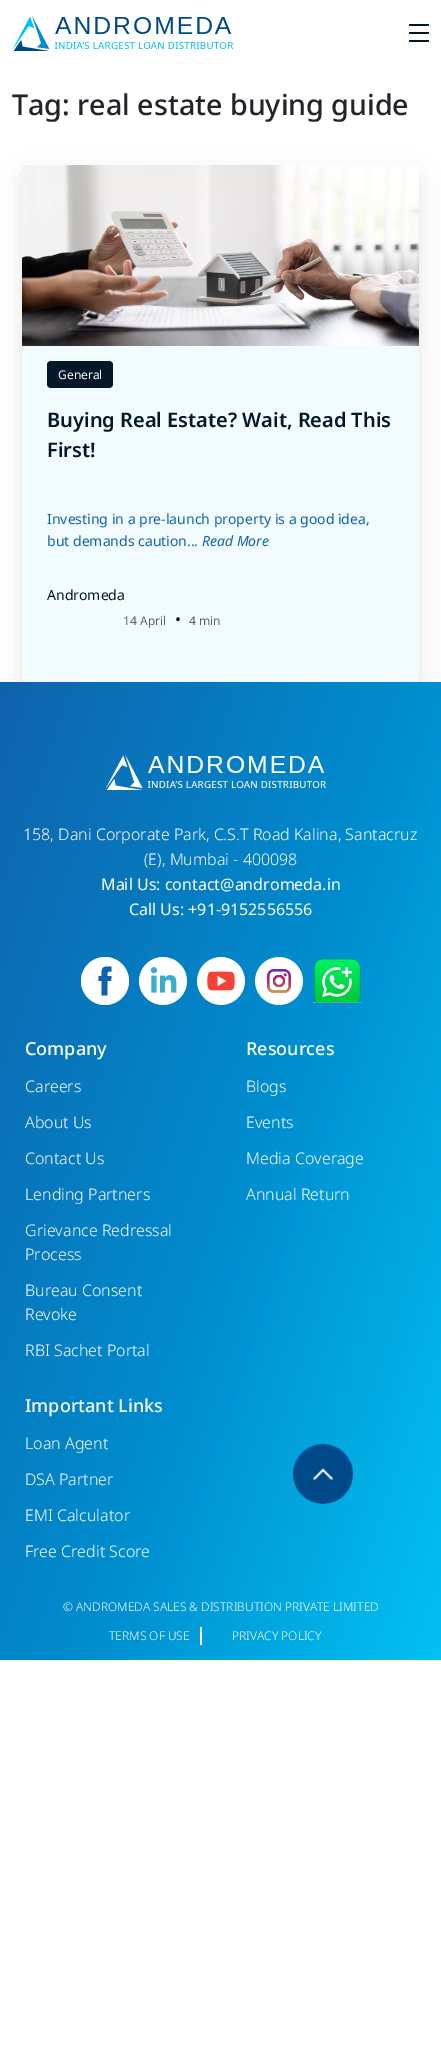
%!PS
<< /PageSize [441 2072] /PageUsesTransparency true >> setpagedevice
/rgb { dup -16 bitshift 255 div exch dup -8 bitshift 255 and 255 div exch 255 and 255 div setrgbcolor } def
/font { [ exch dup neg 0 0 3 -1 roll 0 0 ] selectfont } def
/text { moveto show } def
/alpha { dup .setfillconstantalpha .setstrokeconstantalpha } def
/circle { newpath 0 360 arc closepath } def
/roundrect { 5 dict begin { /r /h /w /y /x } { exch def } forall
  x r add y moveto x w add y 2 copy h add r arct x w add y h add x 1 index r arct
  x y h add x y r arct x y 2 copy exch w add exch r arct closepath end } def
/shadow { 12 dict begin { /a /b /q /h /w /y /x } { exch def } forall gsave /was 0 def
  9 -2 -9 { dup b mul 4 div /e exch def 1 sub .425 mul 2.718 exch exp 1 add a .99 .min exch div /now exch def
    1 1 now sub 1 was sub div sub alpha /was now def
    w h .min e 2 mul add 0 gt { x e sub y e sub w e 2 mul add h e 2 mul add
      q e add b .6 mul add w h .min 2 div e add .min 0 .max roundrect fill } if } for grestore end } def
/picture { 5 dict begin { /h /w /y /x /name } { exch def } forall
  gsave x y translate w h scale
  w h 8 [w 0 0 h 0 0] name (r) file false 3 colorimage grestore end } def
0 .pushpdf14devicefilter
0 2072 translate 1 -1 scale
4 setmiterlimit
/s1 { /NotoSans-Medium 28.6 font 16#212529 rgb } def
/s2 { /NotoSans-Regular 12 font 16#FFFFFF rgb } def
/s3 { /NotoSans-SemiBold 20 font 16#031728 rgb } def
/s4 { /NotoSans-Regular 14 font 16#0F63AC rgb } def
/s5 { /NotoSans-Italic 14 font 16#0F63AC rgb } def
/s6 { /NotoSans-Regular 14 font 16#031728 rgb } def
/s7 { /NotoSans-Regular 12 font 16#546571 rgb } def
/s8 { /NotoSans-Regular 16 font 16#031728 rgb } def
/s9 { /NotoSans-Light 16 font 16#FFFFFF rgb } def
/s10 { /NotoSans-Regular 16 font 16#FFFFFF rgb } def
/s11 { /NotoSans-Medium 18 font 16#FFFFFF rgb } def
/s12 { /NotoSans-Light 12 font 16#FFFFFF rgb } def
16#FFFFFF rgb
0 0 441 2072 rectfill
(pic1.raw) 12 15 222 36 picture
16#031728 rgb
409 24 20 2 1 roundrect fill
409 32 20 2 1 roundrect fill
409 40 20 2 1 roundrect fill
s1
(Tag: real estate buying guide) 12 115 text
gsave
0 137 moveto 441 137 lineto 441 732 lineto 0 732 lineto closepath 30 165 moveto 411 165 lineto 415.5 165 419 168.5 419 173 curveto 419 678 lineto 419 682.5 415.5 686 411 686 curveto 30 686 lineto 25.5 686 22 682.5 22 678 curveto 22 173 lineto 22 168.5 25.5 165 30 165 curveto closepath eoclip newpath
16#000000 rgb
22 174 397 521 8 12 0.1 shadow
grestore
0.05 alpha
16#03C1F3 rgb
22 346 397 336 rectfill
1 alpha
(pic2.raw) 22 165 397 181 picture
16#031728 rgb
47 361 66 27 4 roundrect fill
s2
(General) 58 379 text
s3
(Buying Real Estate? Wait, Read This) 47 427 text
(First!) 47 457 text
s4
(Investing in a pre-launch property is a good idea,) 47 524 text
(but demands caution...) 47 546 text
s5
(Read More) 202 546 text
s6
(Andromeda) 47 600 text
s7
(14 April) 123 625 text
s8
(•) 175 625 text
s7
(4 min) 189 625 text
gsave 0 682 moveto 441 682 lineto 441 1660 lineto 0 1660 lineto closepath clip newpath
<< /ShadingType 2 /ColorSpace /DeviceRGB /Coords [-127 1051 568 1291] /Extend [true true] /Function << /FunctionType 3 /Domain [0 1] /Functions [<< /FunctionType 2 /Domain [0 1] /C0 [0.059 0.388 0.675] /C1 [0 0.553 0.812] /N 1 >> << /FunctionType 2 /Domain [0 1] /C0 [0 0.553 0.812] /C1 [0.012 0.757 0.953] /N 1 >>] /Bounds [0.54] /Encode [0 1 0 1] >> >> shfill grestore
(pic3.raw) 105 754 221 36 picture
s9
(158, Dani Corporate Park, C.S.T Road Kalina, Santacruz) 23 840 text
(\(E\), Mumbai - 400098) 144 865 text
s10
(Mail Us: contact@andromeda.in) 101 890 text
(Call Us: +91-9152556556) 129 915 text
105 981 24 circle fill
16#0F63AC rgb
111.5 966.5 moveto 102.5 966.5 101.5 966.5 101.5 976 curveto 98.5 976 lineto 98.5 981 lineto 101.5 981 lineto 101.5 995.5 lineto 107.5 995.5 lineto 107.5 981 lineto 111 981 lineto 111.5 976 lineto 107.5 976 lineto 107.5 971.5 107 971.5 111.5 971.5 curveto closepath fill
(pic4.raw) 139 957 48 48 picture
(pic5.raw) 197 957 48 48 picture
(pic6.raw) 255 957 48 48 picture
(pic7.raw) 313 959 48 44 picture
s11
(Company) 25 1055 text
s9
(Careers) 25 1092 text
(About Us) 25 1128 text
(Contact Us) 25 1164 text
(Lending Partners) 25 1200 text
(Grievance Redressal) 25 1236 text
(Process) 25 1260 text
(Bureau Consent) 25 1296 text
(Revoke) 25 1320 text
(RBI Sachet Portal) 25 1356 text
s11
(Resources) 246 1055 text
s9
(Blogs) 246 1092 text
(Events) 246 1128 text
(Media Coverage) 246 1164 text
(Annual Return) 246 1200 text
s11
(Important Links) 25 1412 text
s9
(Loan Agent) 25 1449 text
(DSA Partner) 25 1485 text
(EMI Calculator) 25 1521 text
(Free Credit Score) 25 1557 text
(pic8.raw) 293 1444 60 60 picture
s12
(© ANDROMEDA SALES & DISTRIBUTION PRIVATE LIMITED) 63 1611 text
200 1627 2 18 rectfill
(TERMS OF USE) 109 1640 text
(PRIVACY POLICY) 232 1640 text
.poppdf14devicefilter showpage
